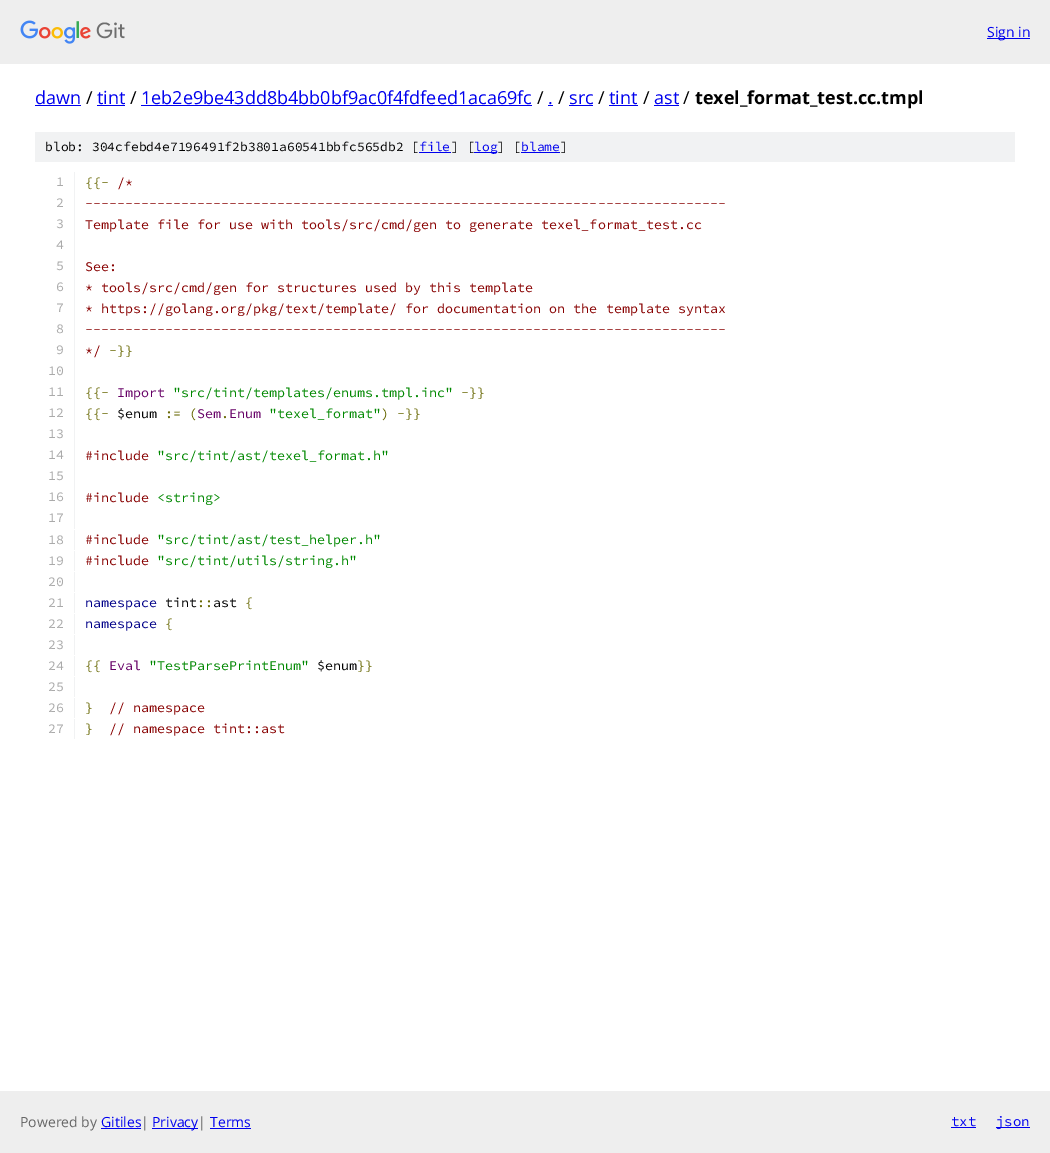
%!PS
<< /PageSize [1050 1153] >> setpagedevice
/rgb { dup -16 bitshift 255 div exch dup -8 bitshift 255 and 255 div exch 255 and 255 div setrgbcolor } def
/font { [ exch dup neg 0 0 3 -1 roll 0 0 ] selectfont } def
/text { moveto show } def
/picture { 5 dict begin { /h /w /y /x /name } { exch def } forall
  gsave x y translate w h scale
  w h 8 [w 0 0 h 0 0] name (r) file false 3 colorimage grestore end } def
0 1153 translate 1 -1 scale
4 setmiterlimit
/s1 { /OpenSans-Regular 14 font 16#0000EE rgb } def
/s2 { /OpenSans-Regular 18 font 16#0000EE rgb } def
/s3 { /OpenSans-Regular 18 font 16#000000 rgb } def
/s4 { /OpenSans-Bold 18 font 16#000000 rgb } def
/s5 { /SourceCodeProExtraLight-ExtraLight 13 font 16#000000 rgb } def
/s6 { /SourceCodeProExtraLight-ExtraLight 13 font 16#0000EE rgb } def
/s7 { /SourceCodeProExtraLight-ExtraLight 13.35 font 16#AAAAAA rgb } def
/s8 { /SourceCodeProExtraLight-ExtraLight 13.35 font 16#666600 rgb } def
/s9 { /SourceCodeProExtraLight-ExtraLight 13.35 font 16#880000 rgb } def
/s10 { /SourceCodeProExtraLight-ExtraLight 13.35 font 16#660066 rgb } def
/s11 { /SourceCodeProExtraLight-ExtraLight 13.35 font 16#008800 rgb } def
/s12 { /SourceCodeProExtraLight-ExtraLight 13.35 font 16#000000 rgb } def
/s13 { /SourceCodeProExtraLight-ExtraLight 13.35 font 16#000088 rgb } def
/s14 { /OpenSans-Regular 14 font 16#666666 rgb } def
/s15 { /SourceCodeProExtraLight-ExtraLight 14 font 16#0000EE rgb } def
16#FFFFFF rgb
0 0 1050 1153 rectfill
16#EEEEEE rgb
0 0 1050 64 rectfill
(pic1.raw) 20 20 105 24 picture
16#0000EE rgb
987 38 43 1 rectfill
s1
(Sign in) 987 37 text
s2
(dawn) 35 104 text
35 105 46 1 rectfill
s3
(/) 86 104 text
s2
(tint) 97 104 text
97 105 28 1 rectfill
s3
(/) 130 104 text
s2
(1eb2e9be43dd8b4bb0bf9ac0f4fdfeed1aca69fc) 141 104 text
141 105 391 1 rectfill
s3
(/) 537 104 text
s2
(.) 548 104 text
548 105 5 1 rectfill
s3
(/) 558 104 text
s2
(src) 569 104 text
569 105 24 1 rectfill
s3
(/) 598 104 text
s2
(tint) 609 104 text
609 105 29 1 rectfill
s3
(/) 643 104 text
s2
(ast) 654 104 text
654 105 25 1 rectfill
s3
(/) 683 104 text
s4
(texel_format_test.cc.tmpl) 695 104 text
16#F1F2F3 rgb
35 132 980 30 rectfill
s5
(blob: 304cfebd4e7196491f2b3801a60541bbfc565db2 [) 45 151 text
s6
(file) 419 151 text
419 152 32 1 rectfill
s5
(] [) 451 151 text
16#0000EE rgb
474 152 23 1 rectfill
(log) 474 151 text
s5
(] [) 497 151 text
s6
(blame) 521 151 text
521 152 39 1 rectfill
s5
(]) 560 151 text
16#F1F2F3 rgb
74 172 1 357 rectfill
s7
(1) 56 186 text
s8
({{-) 85 187 text
s9
(/*) 117 187 text
s7
(2) 56 207 text
s9
(--------------------------------------------------------------------------------) 85 208 text
s7
(3) 56 228 text
s9
(Template file for use with tools/src/cmd/gen to generate texel_format_test.cc) 85 229 text
s7
(4) 56 249 text
(5) 56 270 text
s9
(See:) 85 271 text
s7
(6) 56 291 text
s9
(* tools/src/cmd/gen for structures used by this template) 85 292 text
s7
(7) 56 312 text
s9
(* https://golang.org/pkg/text/template/ for documentation on the template syntax) 85 313 text
s7
(8) 56 333 text
s9
(--------------------------------------------------------------------------------) 85 334 text
s7
(9) 56 354 text
s9
(*/) 85 355 text
s8
(-}}) 109 355 text
s7
(10) 48 375 text
(11) 48 396 text
s8
({{-) 85 397 text
s10
(Import) 117 397 text
s11
("src/tint/templates/enums.tmpl.inc") 173 397 text
s8
(-}}) 461 397 text
s7
(12) 48 417 text
s8
({{-) 85 418 text
s12
($enum) 117 418 text
s8
(:= \() 165 418 text
s10
(Sem Enum) 197 418 text
s11
("texel_format") 269 418 text
s8
(\) -}}) 381 418 text
(.) 221 418 text
s7
(13) 48 438 text
(14) 48 459 text
s9
(#include) 85 460 text
s11
("src/tint/ast/texel_format.h") 157 460 text
s7
(15) 48 480 text
(16) 48 501 text
s9
(#include) 85 502 text
s11
(<string>) 157 502 text
s7
(17) 48 522 text
16#F1F2F3 rgb
74 530 1 20 rectfill
s7
(18) 48 544 text
s9
(#include) 85 544 text
s11
("src/tint/ast/test_helper.h") 157 544 text
16#F1F2F3 rgb
74 551 1 20 rectfill
s7
(19) 48 565 text
s9
(#include) 85 565 text
s11
("src/tint/utils/string.h") 157 565 text
16#F1F2F3 rgb
74 572 1 20 rectfill
s7
(20) 48 586 text
16#F1F2F3 rgb
74 593 1 20 rectfill
s7
(21) 48 607 text
s13
(namespace) 85 607 text
s12
(tint) 165 607 text
s8
(::) 197 607 text
s12
(ast) 213 607 text
s8
({) 245 607 text
16#F1F2F3 rgb
74 614 1 20 rectfill
s7
(22) 48 628 text
s13
(namespace) 85 628 text
s8
({) 165 628 text
16#F1F2F3 rgb
74 635 1 20 rectfill
s7
(23) 48 649 text
16#F1F2F3 rgb
74 656 1 20 rectfill
s7
(24) 48 670 text
s8
({{) 85 670 text
s10
(Eval) 109 670 text
s11
("TestParsePrintEnum") 149 670 text
s12
($enum) 317 670 text
s8
(}}) 357 670 text
16#F1F2F3 rgb
74 677 1 20 rectfill
s7
(25) 48 691 text
16#F1F2F3 rgb
74 698 1 20 rectfill
s7
(26) 48 712 text
s8
(}) 85 712 text
s9
(// namespace) 109 712 text
16#F1F2F3 rgb
74 719 1 20 rectfill
s7
(27) 48 733 text
s8
(}) 85 733 text
s9
(// namespace tint::ast) 109 733 text
16#EEEEEE rgb
0 1091 1050 62 rectfill
s14
(Powered by) 20 1127 text
s1
(Gitiles) 101 1127 text
101 1128 40 1 rectfill
s14
(|) 141 1127 text
16#0000EE rgb
152 1128 46 1 rectfill
(Privacy) 152 1127 text
s14
(|) 198 1127 text
s1
(Terms) 210 1127 text
210 1128 41 1 rectfill
s15
(txt) 951 1126 text
951 1127 25 1 rectfill
996 1127 34 1 rectfill
(json) 996 1126 text
showpage
